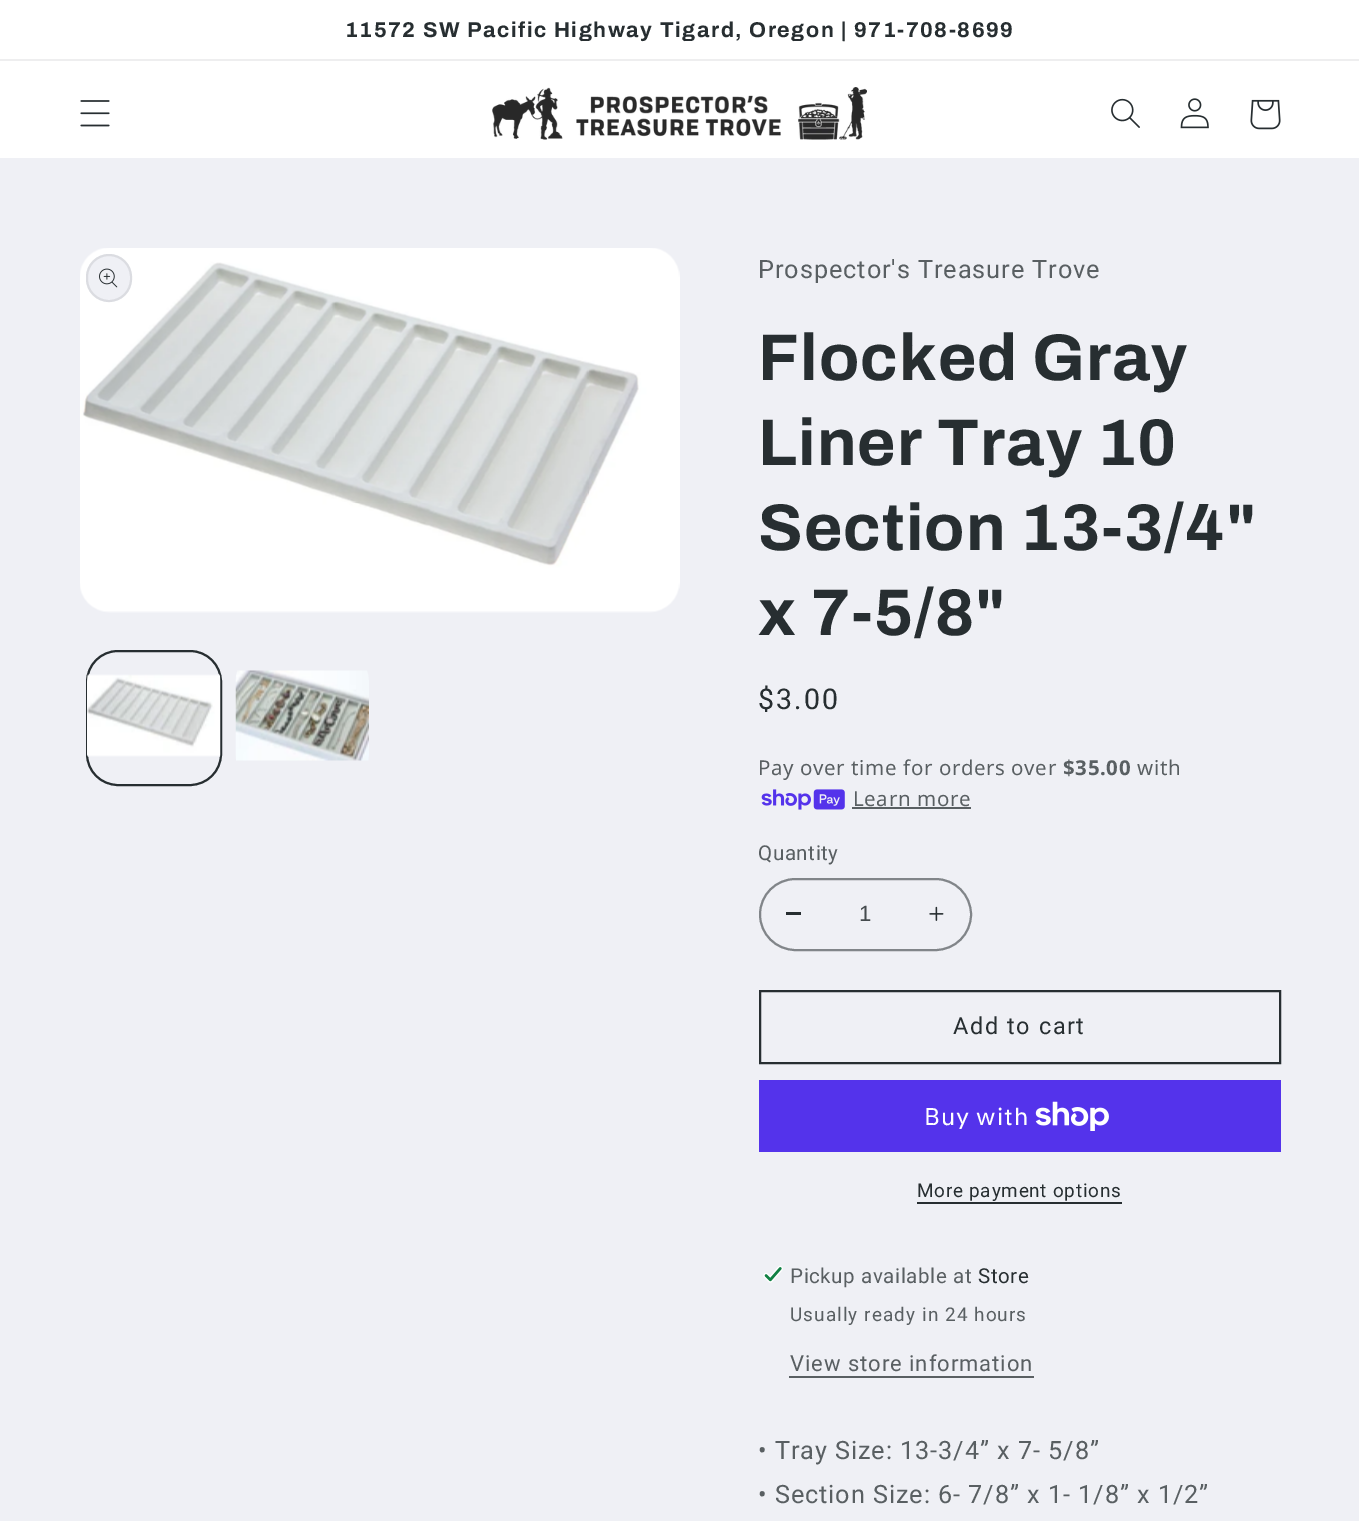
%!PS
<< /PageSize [1359 1521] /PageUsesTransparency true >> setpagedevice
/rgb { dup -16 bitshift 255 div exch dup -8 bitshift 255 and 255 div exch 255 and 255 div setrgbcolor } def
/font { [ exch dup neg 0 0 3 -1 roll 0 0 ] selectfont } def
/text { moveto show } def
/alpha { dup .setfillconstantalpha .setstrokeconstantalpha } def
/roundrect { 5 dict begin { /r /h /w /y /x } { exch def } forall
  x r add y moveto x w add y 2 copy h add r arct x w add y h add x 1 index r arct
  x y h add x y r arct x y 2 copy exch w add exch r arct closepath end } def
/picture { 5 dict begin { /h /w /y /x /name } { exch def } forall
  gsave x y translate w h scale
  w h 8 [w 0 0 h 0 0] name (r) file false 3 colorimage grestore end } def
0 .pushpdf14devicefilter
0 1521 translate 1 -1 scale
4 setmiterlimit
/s1 { /LiberationSans-Regular 22 font 16#454B4E rgb } def
16#EFF0F5 rgb
0 0 1359 1521 rectfill
16#FFFFFF rgb
0 0 1359 59 rectfill
16#EEEEEF rgb
0 59 1359 2 rectfill
/Archivo-Bold 21.45 font
16#272E31 rgb
345 37 moveto 1.58 0 (11572 SW Pacific Highway Tigard, Oregon | 971-708-8699) ashow
16#FFFFFF rgb
0 61 1359 97 rectfill
(pic1.raw) 80 100 30 27 picture
(pic2.raw) 492 87 375 53 picture
(pic3.raw) 1111 98 29 30 picture
(pic4.raw) 1180 98 29 31 picture
(pic5.raw) 1250 99 31 31 picture
(pic6.raw) 80 248 600 365 picture
16#EFF0F5 rgb
86 254 46 48 23 roundrect fill
0.1 alpha
16#272E31 rgb
2 setlinewidth
87 255 44 46 22 roundrect stroke
1 alpha
(pic7.raw) 99 268 19 20 picture
87 651 134 134 31 roundrect stroke
(pic8.raw) 87 674 134 83 picture
(pic9.raw) 235 670 134 91 picture
/Roboto-Regular 25.25 font
16#595F62 rgb
758 278 moveto 0.95 0 (Prospector's Treasure Trove) ashow
/Archivo-Bold 66 font
16#272E31 rgb
758 380 moveto 1 0 (Flocked Gray) ashow
758 465 moveto 1 0 (Liner Tray 10) ashow
758 550 moveto 1 0 (Section 13-3/4") ashow
758 635 moveto 1 0 (x 7-5/8") ashow
/Roboto-Regular 28.5 font
758 709 moveto 2 0 ($3.00) ashow
/NotoSans-Regular 20.5 font
16#595F62 rgb
758 775 moveto 0.6 0 (Pay over time for orders over) ashow
/NotoSans-Bold 20.5 font
1063 775 moveto 0.6 0 ($35.00) ashow
/NotoSans-Regular 20.5 font
1137 775 moveto 0.6 0 (with) ashow
(pic10.raw) 761 789 84 21 picture
853 806 moveto 0.6 0 (Learn more) ashow
852 807 119 2 rectfill
/Roboto-Regular 20.5 font
758 860 moveto 0.6 0 (Quantity) ashow
16#272E31 rgb
786 912 15 3 rectfill
(pic11.raw) 929 906 15 15 picture
16#818589 rgb
760 879 211 71 35.5 roundrect stroke
s1
(1) 859 921 text
16#272E31 rgb
760 991 520 72 rectstroke
/Roboto-Regular 23.5 font
953 1034 moveto 1.58 0 (Add to cart) ashow
16#5433EB rgb
759 1080 522 72 rectfill
/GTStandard-Regular 24 font
16#FFFFFF rgb
924 1125 moveto 0.95 0 (Buy with) ashow
(pic12.raw) 1035 1101 74 30 picture
/Roboto-Regular 18.9 font
16#272E31 rgb
917 1197 moveto 0.75 0 (More payment options) ashow
917 1202 205 2 rectfill
(pic13.raw) 763 1265 20 18 picture
/Roboto-Regular 20.5 font
16#595F62 rgb
790 1283 moveto 0.6 0 (Pickup available at) ashow
16#272E31 rgb
978 1283 moveto 0.6 0 (Store) ashow
/Roboto-Regular 18.9 font
16#595F62 rgb
790 1321 moveto 1.1 0 (Usually ready in 24 hours) ashow
/Roboto-Regular 22 font
790 1371 moveto 0.95 0 (View store information) ashow
789 1376 245 2 rectfill
/Roboto-Regular 25.25 font
758 1459 moveto 0.95 0 (• Tray Size: 13-3/4” x 7- 5/8”) ashow
758 1503 moveto 0.95 0 (• Section Size: 6- 7/8” x 1- 1/8” x 1/2”) ashow
.poppdf14devicefilter showpage
